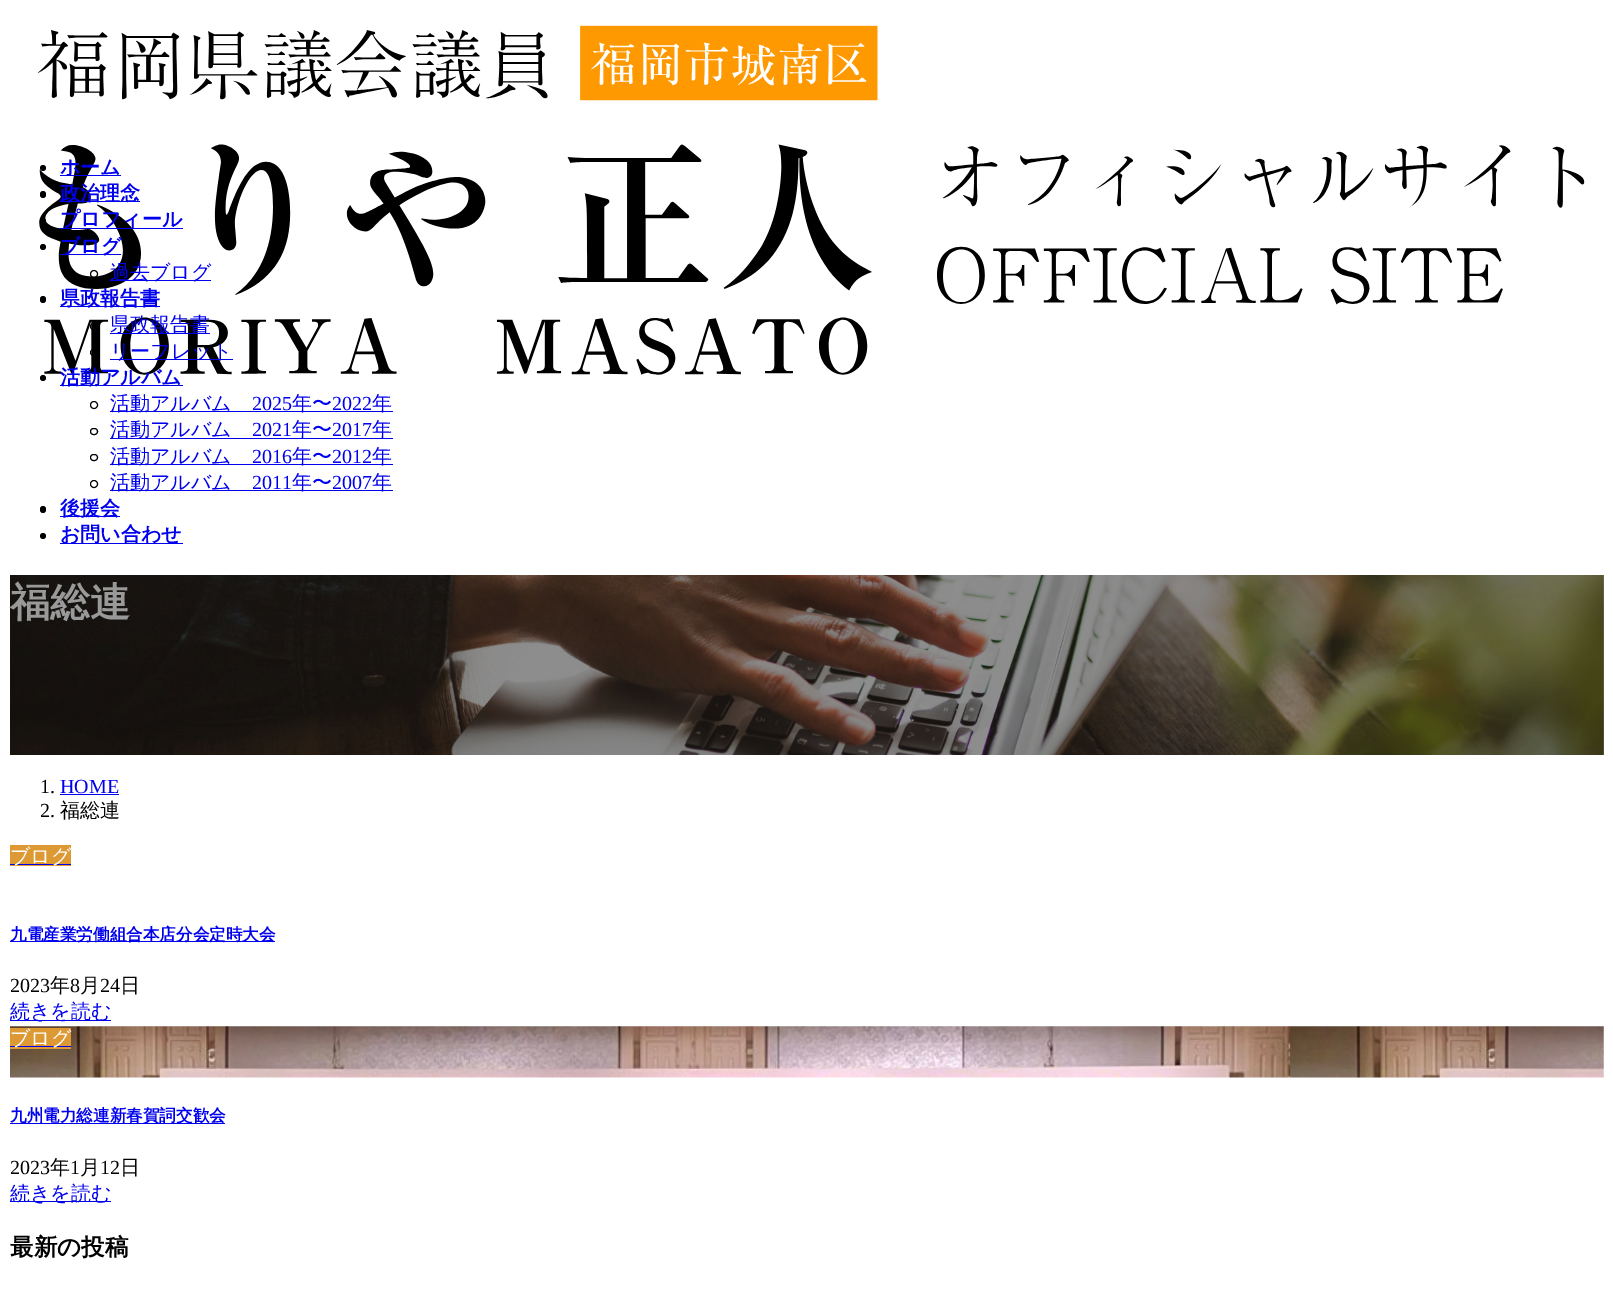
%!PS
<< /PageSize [1613 1308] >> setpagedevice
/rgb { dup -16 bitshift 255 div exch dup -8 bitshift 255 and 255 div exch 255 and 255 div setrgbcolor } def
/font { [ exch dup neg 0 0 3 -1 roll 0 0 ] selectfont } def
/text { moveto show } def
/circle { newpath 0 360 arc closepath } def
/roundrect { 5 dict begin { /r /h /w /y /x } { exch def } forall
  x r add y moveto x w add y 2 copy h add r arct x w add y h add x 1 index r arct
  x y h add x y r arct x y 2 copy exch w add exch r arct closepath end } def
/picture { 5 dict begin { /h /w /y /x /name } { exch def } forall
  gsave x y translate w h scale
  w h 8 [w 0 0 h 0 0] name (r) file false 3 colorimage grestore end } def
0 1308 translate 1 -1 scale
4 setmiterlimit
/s1 { /WenQuanYiZenHei-Bold 20 font 16#0000EE rgb } def
/s2 { /WenQuanYiZenHei-Medium 20 font 16#0000EE rgb } def
/s3 { /LiberationSerif-Regular 20 font 16#0000EE rgb } def
/s4 { /WenQuanYiZenHei-Bold 40 font 16#999999 rgb } def
/s5 { /LiberationSerif-Regular 20 font 16#000000 rgb } def
/s6 { /WenQuanYiZenHei-Medium 20 font 16#000000 rgb } def
/s7 { /WenQuanYiZenHei-Medium 20 font 16#FFFFFF rgb } def
/s8 { /WenQuanYiZenHei-Bold 16.6 font 16#0000EE rgb } def
/s9 { /WenQuanYiZenHei-Bold 23.5 font 16#000000 rgb } def
16#FFFFFF rgb
0 0 1613 1308 rectfill
(pic1.raw) 37 25 1548 350 picture
16#000000 rgb
43 168 3 circle fill
16#0000EE rgb
60 175 61 1 rectfill
s1
(ホーム) 60 174 text
16#000000 rgb
40 191 6 7 3 roundrect fill
16#0000EE rgb
60 201 80 1 rectfill
(政治理念) 60 200 text
16#000000 rgb
43 221 3 circle fill
16#0000EE rgb
60 228 123 1 rectfill
(プロフィール) 60 226 text
16#000000 rgb
43 247 3 circle fill
16#0000EE rgb
60 254 61 1 rectfill
(ブログ) 60 253 text
16#000000 rgb
94 274 3.5 circle stroke
16#0000EE rgb
110 280 101 1 rectfill
s2
(過去ブログ) 110 279 text
16#000000 rgb
40 296 6 7 3 roundrect fill
16#0000EE rgb
60 306 100 1 rectfill
s1
(県政報告書) 60 305 text
16#000000 rgb
90.5 323.5 7 6 3 roundrect stroke
16#0000EE rgb
110 333 100 1 rectfill
s2
(県政報告書) 110 331 text
16#000000 rgb
90.5 349.5 7 6 3 roundrect stroke
16#0000EE rgb
110 359 123 1 rectfill
(リーフレット) 110 358 text
16#000000 rgb
43 378 3 circle fill
16#0000EE rgb
60 385 123 1 rectfill
s1
(活動アルバム) 60 384 text
16#000000 rgb
94 405 3.5 circle stroke
16#0000EE rgb
110 411 283 1 rectfill
s2
(活動アルバム) 110 410 text
s3
(2025) 252 410 text
s2
(年〜) 292 410 text
s3
(2022) 332 410 text
s2
(年) 372 410 text
16#000000 rgb
90.5 428.5 7 6 3 roundrect stroke
16#0000EE rgb
110 438 283 1 rectfill
(活動アルバム) 110 436 text
s3
(2021) 252 436 text
s2
(年〜) 292 436 text
s3
(2017) 332 436 text
s2
(年) 372 436 text
16#000000 rgb
90.5 454.5 7 6 3 roundrect stroke
16#0000EE rgb
110 464 283 1 rectfill
(活動アルバム) 110 463 text
s3
(2016) 252 463 text
s2
(年〜) 292 463 text
s3
(2012) 332 463 text
s2
(年) 372 463 text
16#000000 rgb
94 484 3.5 circle stroke
16#0000EE rgb
110 490 283 1 rectfill
(活動アルバム) 110 489 text
s3
(2011) 252 489 text
s2
(年〜) 292 489 text
s3
(2007) 332 489 text
s2
(年) 372 489 text
16#000000 rgb
40 506 6 7 3 roundrect fill
16#0000EE rgb
60 516 60 1 rectfill
s1
(後援会) 60 515 text
16#000000 rgb
43 536 3 circle fill
16#0000EE rgb
60 543 123 1 rectfill
(お問い合わせ) 60 541 text
(pic2.raw) 10 575 1594 180 picture
s4
(福総連) 10 616 text
s5
(1.) 40 793 text
s3
(HOME) 60 793 text
60 794 59 1 rectfill
s5
(2.) 40 817 text
s6
(福総連) 60 817 text
16#DD9933 rgb
10 845 61 21 rectfill
16#0000EE rgb
10 864 61 1 rectfill
s7
(ブログ) 10 863 text
16#0000EE rgb
10 941 265 1 rectfill
s8
(九電産業労働組合本店分会定時大会) 10 940 text
s5
(2023) 10 992 text
s6
(年) 50 992 text
s5
(8) 70 992 text
s6
(月) 80 992 text
s5
(24) 100 992 text
s6
(日) 120 992 text
16#0000EE rgb
10 1020 101 1 rectfill
(続きを読む) 10 1018 text
(pic3.raw) 10 1026 1594 52 picture
16#DD9933 rgb
10 1028 61 21 rectfill
16#0000EE rgb
10 1046 61 1 rectfill
s7
(ブログ) 10 1045 text
16#0000EE rgb
10 1123 215 1 rectfill
s8
(九州電力総連新春賀詞交歓会) 10 1121 text
s5
(2023) 10 1174 text
s6
(年) 50 1174 text
s5
(1) 70 1174 text
s6
(月) 80 1174 text
s5
(12) 100 1174 text
s6
(日) 120 1174 text
16#0000EE rgb
10 1201 101 1 rectfill
(続きを読む) 10 1200 text
s9
(最新の投稿) 10 1255 text
showpage
